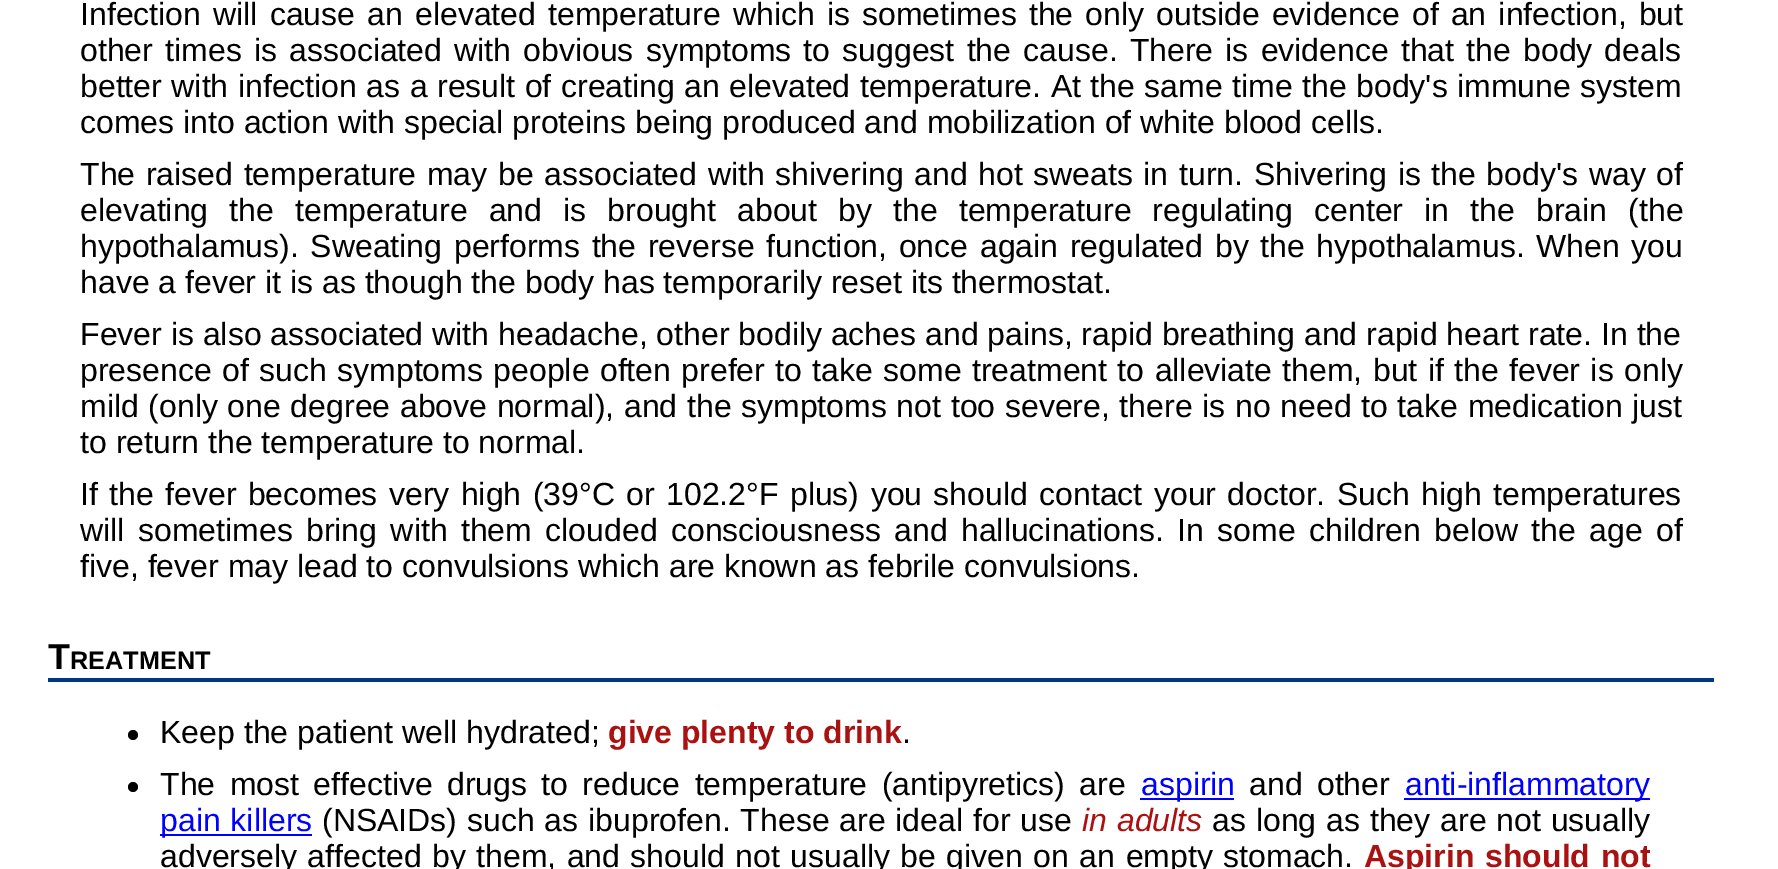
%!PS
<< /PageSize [1778 869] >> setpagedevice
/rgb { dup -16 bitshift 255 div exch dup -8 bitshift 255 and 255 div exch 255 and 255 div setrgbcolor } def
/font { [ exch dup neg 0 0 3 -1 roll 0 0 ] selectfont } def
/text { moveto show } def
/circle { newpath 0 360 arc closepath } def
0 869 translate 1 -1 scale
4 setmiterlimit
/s1 { /LiberationSans-Regular 32 font 16#000000 rgb } def
/s2 { /LiberationSans-Bold 36 font 16#000000 rgb } def
/s3 { /LiberationSans-Bold 25.25 font 16#000000 rgb } def
/s4 { /LiberationSans-Bold 32 font 16#AA1111 rgb } def
/s5 { /LiberationSans-Regular 32 font 16#0000FF rgb } def
16#FFFFFF rgb
0 0 1778 869 rectfill
/LiberationSans-Regular 32 font
16#000000 rgb
80 25 moveto 3.25 0 32 (Infection will cause an elevated temperature which is sometimes the only outside evidence of an infection, but) widthshow
80 61 moveto 3.25 0 32 (other times is associated with obvious symptoms to suggest the cause. There is evidence that the body deals) widthshow
80 97 moveto 0.6 0 32 (better with infection as a result of creating an elevated temperature. At the same time the body's immune system) widthshow
(comes into action with special proteins being produced and mobilization of white blood cells.) 80 133 text
80 185 moveto 1.75 0 32 (The raised temperature may be associated with shivering and hot sweats in turn. Shivering is the body's way of) widthshow
80 221 moveto 12.25 0 32 (elevating the temperature and is brought about by the temperature regulating center in the brain \(the) widthshow
80 257 moveto 2.75 0 32 (hypothalamus\). Sweating performs the reverse function, once again regulated by the hypothalamus. When you) widthshow
(have a fever it is as though the body has temporarily reset its thermostat.) 80 293 text
(Fever is also associated with headache, other bodily aches and pains, rapid breathing and rapid heart rate. In the) 80 345 text
80 381 moveto 1.5 0 32 (presence of such symptoms people often prefer to take some treatment to alleviate them, but if the fever is only) widthshow
80 417 moveto 0.8 0 32 (mild \(only one degree above normal\), and the symptoms not too severe, there is no need to take medication just) widthshow
(to return the temperature to normal.) 80 453 text
80 505 moveto 2.5 0 32 (If the fever becomes very high \(39°C or 102.2°F plus\) you should contact your doctor. Such high temperatures) widthshow
80 541 moveto 4.5 0 32 (will sometimes bring with them clouded consciousness and hallucinations. In some children below the age of) widthshow
(five, fever may lead to convulsions which are known as febrile convulsions.) 80 577 text
16#003784 rgb
48 678 1666 4 rectfill
s2
(T) 48 669 text
s3
(REATMENT) 70 669 text
133 735 5 circle fill
s1
(Keep the patient well hydrated;) 160 743 text
s4
(give plenty to drink) 608 743 text
s1
(.) 902 743 text
133 787 5 circle fill
160 795 moveto 5.5 0 32 (The most effective drugs to reduce temperature \(antipyretics\) are) widthshow
16#0000FF rgb
1140 798 94 2 rectfill
(aspirin) 1141 795 text
16#000000 rgb
1249 795 moveto 5.5 0 32 (and other) widthshow
16#0000FF rgb
1404 798 246 2 rectfill
(anti-inflammatory) 1405 795 text
160 834 152 2 rectfill
160 831 moveto 1 0 32 (pain killers) widthshow
16#000000 rgb
322 831 moveto 1 0 32 (\(NSAIDs\) such as ibuprofen. These are ideal for use) widthshow
/LiberationSans-Italic 32 font
16#AA1111 rgb
1082 831 moveto 1 0 32 (in adults) widthshow
/LiberationSans-Regular 32 font
16#000000 rgb
1212 831 moveto 1 0 32 (as long as they are not usually) widthshow
160 867 moveto 1.6 0 32 (adversely affected by them, and should not usually be given on an empty stomach.) widthshow
/LiberationSans-Bold 32 font
16#AA1111 rgb
1364 867 moveto 2 0 32 (Aspirin should not) widthshow
showpage
